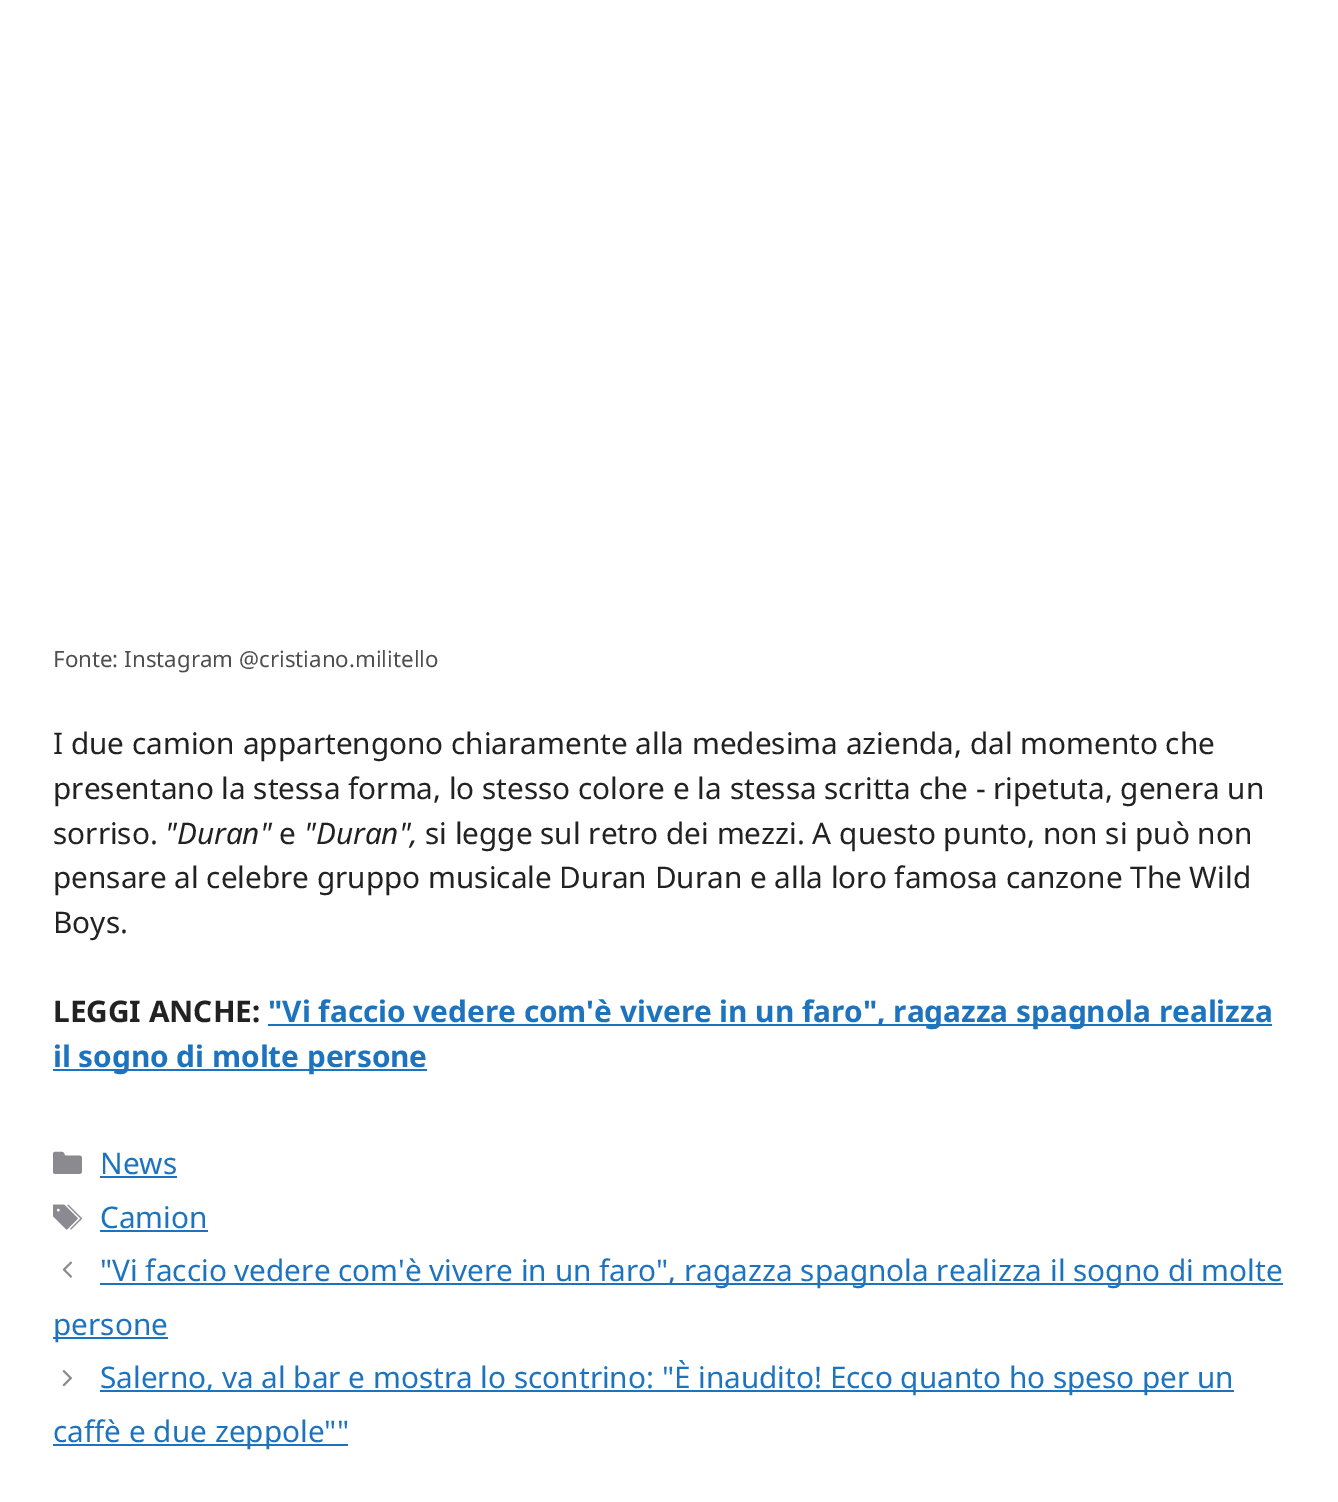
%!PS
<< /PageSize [1338 1502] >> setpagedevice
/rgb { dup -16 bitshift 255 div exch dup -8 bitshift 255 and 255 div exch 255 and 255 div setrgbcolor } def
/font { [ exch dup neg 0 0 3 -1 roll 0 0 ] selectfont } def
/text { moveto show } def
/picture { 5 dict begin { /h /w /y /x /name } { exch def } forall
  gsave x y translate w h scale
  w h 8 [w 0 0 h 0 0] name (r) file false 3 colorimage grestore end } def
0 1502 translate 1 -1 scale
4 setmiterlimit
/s1 { /NotoSans-Regular 22.3 font 16#4E4E4E rgb } def
/s2 { /NotoSans-Regular 29.75 font 16#222222 rgb } def
/s3 { /NotoSans-Italic 29.75 font 16#222222 rgb } def
/s4 { /NotoSans-Bold 29.75 font 16#222222 rgb } def
/s5 { /NotoSans-Bold 29.75 font 16#1E73BE rgb } def
/s6 { /NotoSans-Regular 29.75 font 16#1E73BE rgb } def
16#FFFFFF rgb
0 0 1338 1502 rectfill
s1
(Fonte: Instagram @cristiano.militello) 53 667 text
s2
(I due camion appartengono chiaramente alla medesima azienda, dal momento che) 53 754 text
(presentano la stessa forma, lo stesso colore e la stessa scritta che - ripetuta, genera un) 53 799 text
(sorriso.) 53 844 text
s3
("Duran") 165 844 text
s2
(e) 279 844 text
s3
("Duran",) 304 844 text
s2
(si legge sul retro dei mezzi. A questo punto, non si può non) 425 844 text
(pensare al celebre gruppo musicale Duran Duran e alla loro famosa canzone The Wild) 53 888 text
(Boys.) 53 933 text
s4
(LEGGI ANCHE:) 53 1022 text
16#1E73BE rgb
268 1024 1004 2 rectfill
("Vi faccio vedere com'è vivere in un faro", ragazza spagnola realizza) 268 1022 text
53 1069 374 2 rectfill
(il sogno di molte persone) 53 1067 text
(pic1.raw) 53 1151 29 23 picture
s6
(News) 100 1174 text
100 1176 77 2 rectfill
(pic2.raw) 53 1204 29 26 picture
(Camion) 100 1228 text
100 1230 108 2 rectfill
(pic3.raw) 62 1261 11 17 picture
100 1283 1183 2 rectfill
("Vi faccio vedere com'è vivere in un faro", ragazza spagnola realizza il sogno di molte) 100 1281 text
53 1337 115 2 rectfill
(persone) 53 1335 text
(pic4.raw) 62 1370 11 17 picture
100 1390 1134 2 rectfill
(Salerno, va al bar e mostra lo scontrino: "È inaudito! Ecco quanto ho speso per un) 100 1388 text
53 1444 295 2 rectfill
(caffè e due zeppole"") 53 1442 text
showpage
